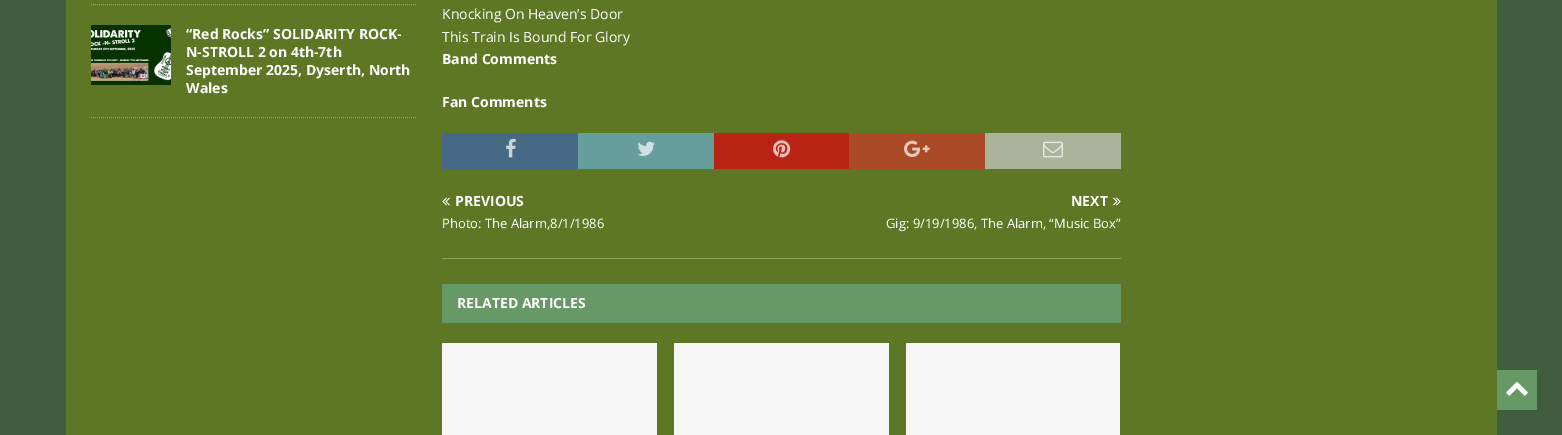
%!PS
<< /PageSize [1562 435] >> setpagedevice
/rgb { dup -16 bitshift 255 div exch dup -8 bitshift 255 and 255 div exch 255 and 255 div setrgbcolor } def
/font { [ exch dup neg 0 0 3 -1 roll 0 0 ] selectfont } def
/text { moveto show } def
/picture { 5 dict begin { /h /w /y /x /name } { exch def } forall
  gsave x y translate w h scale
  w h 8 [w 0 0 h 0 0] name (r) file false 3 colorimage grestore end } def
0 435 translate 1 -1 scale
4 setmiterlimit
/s1 { /OpenSans-Bold 14 font 16#FFFFFF rgb } def
/s2 { /OpenSans-Regular 14 font 16#FFFFFF rgb } def
/s3 { /OpenSans-Regular 13 font 16#FFFFFF rgb } def
16#405E3D rgb
0 0 1562 435 rectfill
16#5D7725 rgb
66 0 1431 435 rectfill
16#8EA066 rgb
[1 1] 0 setdash
91 4.5 moveto 417 4.5 lineto stroke
91 117.5 moveto 417 117.5 lineto stroke
(pic1.raw) 91 25 80 60 picture
s1
(“Red Rocks” SOLIDARITY ROCK-) 186 39 text
(N-STROLL 2 on 4th-7th) 186 57 text
(September 2025, Dyserth, North) 186 75 text
(Wales) 186 93 text
s2
(Knocking On Heaven’s Door) 442 19 text
(This Train Is Bound For Glory) 442 42 text
s1
(Band Comments) 442 64 text
(Fan Comments) 442 107 text
16#476A84 rgb
442 133 136 36 rectfill
(pic2.raw) 506 138 10 20 picture
16#669D9D rgb
578 133 136 36 rectfill
(pic3.raw) 637 141 18 15 picture
16#B72414 rgb
714 133 135 36 rectfill
(pic4.raw) 773 140 18 18 picture
16#AB4A26 rgb
849 133 136 36 rectfill
(pic5.raw) 904 140 26 17 picture
16#ABB39A rgb
985 133 136 36 rectfill
(pic6.raw) 1043 141 20 17 picture
16#8EA066 rgb
442 258 679 1 rectfill
(pic7.raw) 442 197 8 9 picture
s1
(PREVIOUS) 455 206 text
s3
(Photo: The Alarm,8/1/1986) 442 228 text
s1
(NEXT) 1071 206 text
(pic8.raw) 1113 197 8 9 picture
s3
(Gig: 9/19/1986, The Alarm, “Music Box”) 886 228 text
16#669966 rgb
442 284 679 39 rectfill
s1
(RELATED ARTICLES) 457 308 text
16#F7F7F7 rgb
442 343 215 92 rectfill
674 343 215 92 rectfill
906 343 214 92 rectfill
16#669966 rgb
1497 370 40 40 rectfill
(pic9.raw) 1506 382 22 14 picture
showpage
